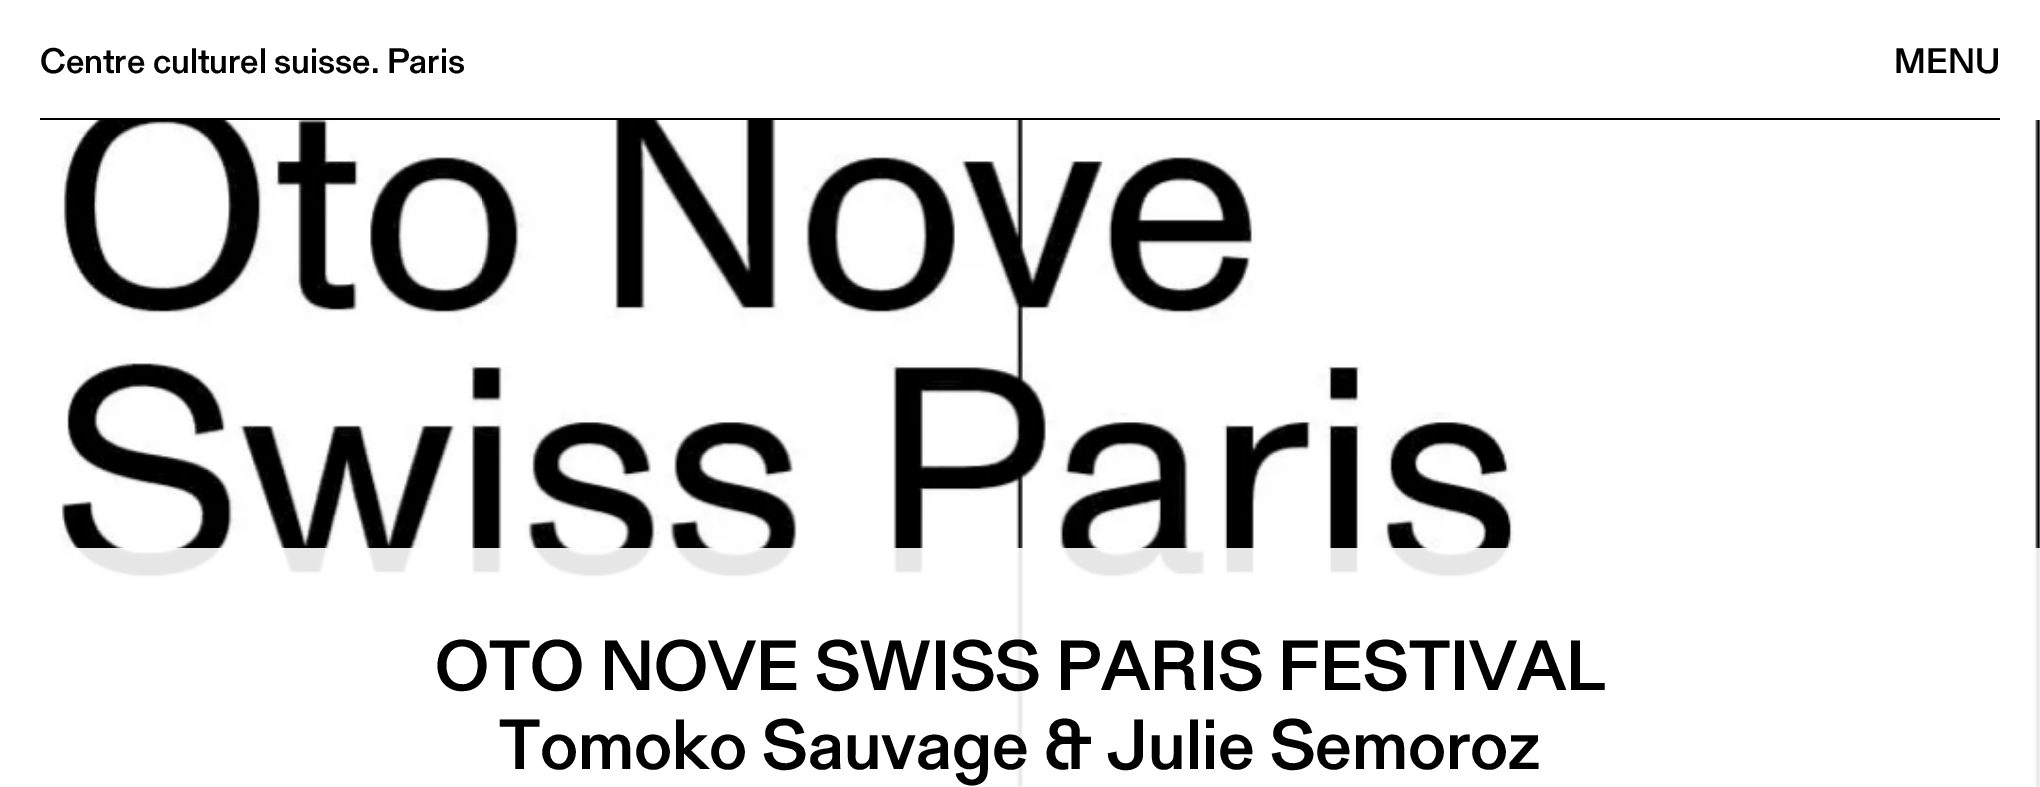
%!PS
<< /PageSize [2040 787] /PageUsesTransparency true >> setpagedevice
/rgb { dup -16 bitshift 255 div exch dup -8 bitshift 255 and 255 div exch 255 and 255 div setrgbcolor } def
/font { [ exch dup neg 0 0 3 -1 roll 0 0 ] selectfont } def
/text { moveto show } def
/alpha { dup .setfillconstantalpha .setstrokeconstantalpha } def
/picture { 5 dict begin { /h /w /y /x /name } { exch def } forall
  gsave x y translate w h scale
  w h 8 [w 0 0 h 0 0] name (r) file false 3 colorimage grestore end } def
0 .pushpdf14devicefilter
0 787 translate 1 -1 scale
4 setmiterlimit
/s1 { /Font-Medium 35 font 16#000000 rgb } def
/s2 { /Font-Medium 70 font 16#000000 rgb } def
16#FFFFFF rgb
0 0 2040 787 rectfill
16#000000 rgb
40 118 1960 2 rectfill
s1
(Centre culturel suisse. Paris) 40 73 text
(MENU) 1894 73 text
(pic1.raw) 60 120 1980 667 picture
0.9 alpha
16#FFFFFF rgb
73 548 1967 239 rectfill
1 alpha
s2
(OTO NOVE SWISS PARIS FESTIVAL) 435 690 text
(Tomoko Sauvage & Julie Semoroz) 499 769 text
.poppdf14devicefilter showpage
